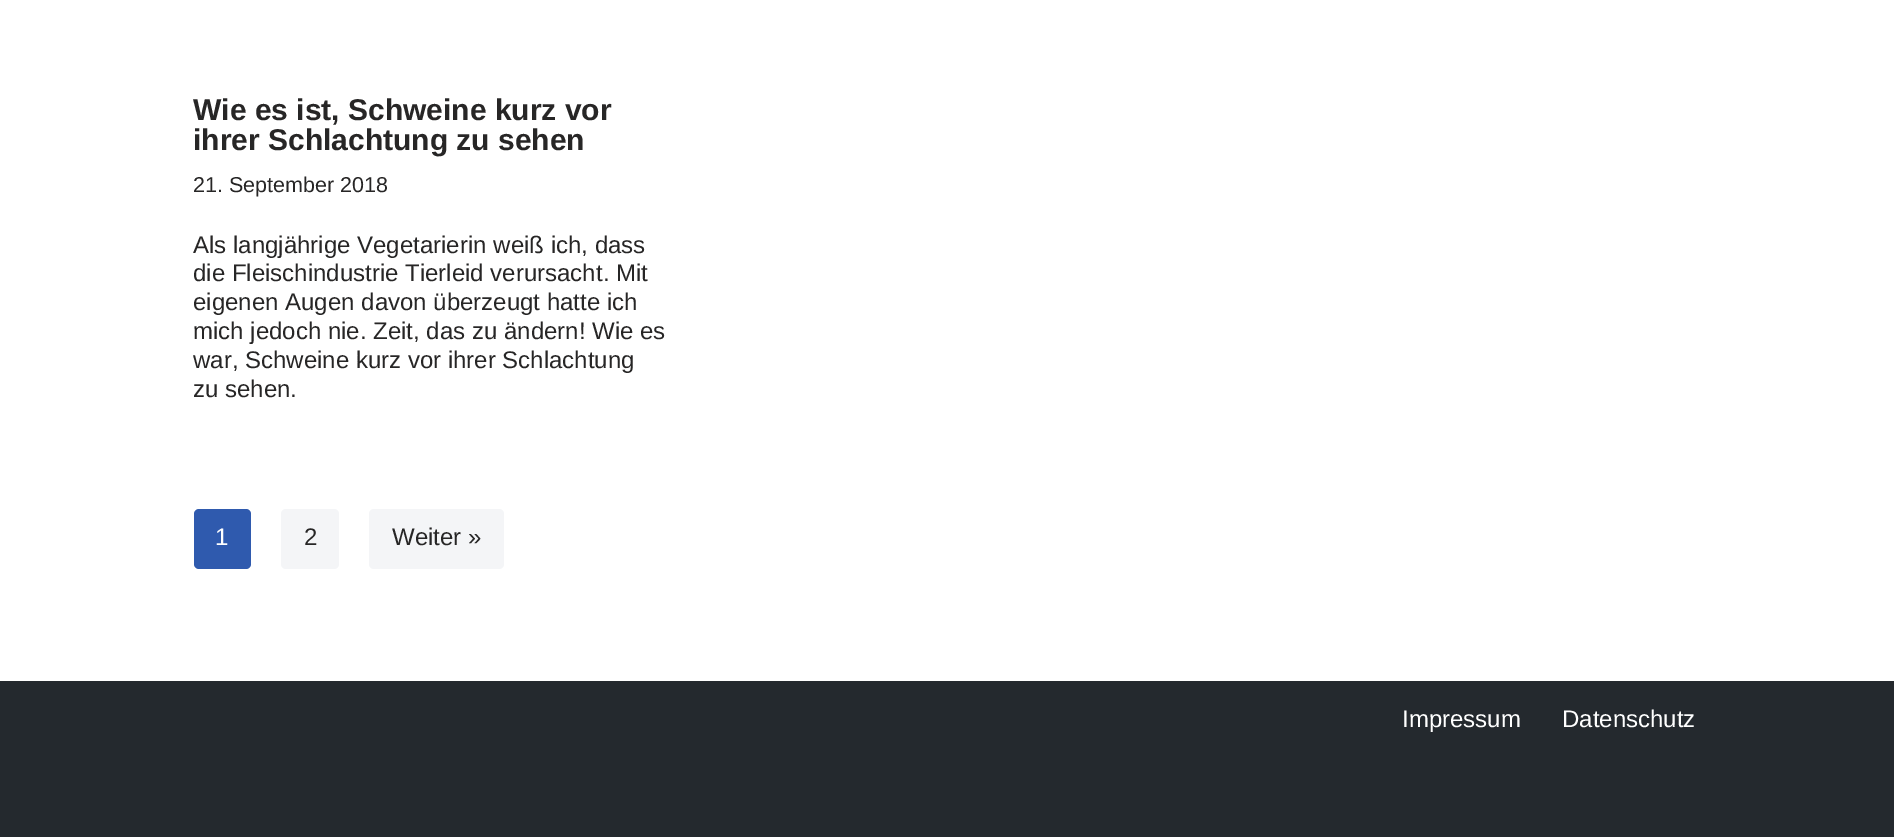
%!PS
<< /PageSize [1894 837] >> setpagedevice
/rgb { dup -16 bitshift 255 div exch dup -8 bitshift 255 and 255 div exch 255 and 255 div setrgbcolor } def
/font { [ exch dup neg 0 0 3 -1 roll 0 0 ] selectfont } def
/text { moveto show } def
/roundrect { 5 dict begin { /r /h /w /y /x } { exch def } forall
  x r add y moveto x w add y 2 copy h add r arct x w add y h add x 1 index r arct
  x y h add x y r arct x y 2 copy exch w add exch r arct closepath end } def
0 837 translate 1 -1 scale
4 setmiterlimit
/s1 { /LiberationSans-Bold 30 font 16#272626 rgb } def
/s2 { /LiberationSans-Regular 21.5 font 16#272626 rgb } def
/s3 { /LiberationSans-Regular 24 font 16#272626 rgb } def
/s4 { /LiberationSans-Regular 24 font 16#FFFFFF rgb } def
16#FFFFFF rgb
0 0 1894 837 rectfill
s1
(Wie es ist, Schweine kurz vor) 193 120 text
(ihrer Schlachtung zu sehen) 193 150 text
s2
(21. September 2018) 193 192 text
s3
(Als langjährige Vegetarierin weiß ich, dass) 193 253 text
(die Fleischindustrie Tierleid verursacht. Mit) 193 281 text
(eigenen Augen davon überzeugt hatte ich) 193 310 text
(mich jedoch nie. Zeit, das zu ändern! Wie es) 193 339 text
(war, Schweine kurz vor ihrer Schlachtung) 193 368 text
(zu sehen.) 193 397 text
16#2F5AAE rgb
194 509 57 60 5 roundrect fill
s4
(1) 215 545 text
16#F4F5F7 rgb
281 509 58 60 5 roundrect fill
s3
(2) 304 545 text
16#F4F5F7 rgb
369 509 135 60 5 roundrect fill
s3
(Weiter ») 392 545 text
16#24292E rgb
0 681 1894 156 rectfill
s4
(Impressum) 1402 727 text
(Datenschutz) 1562 727 text
showpage
